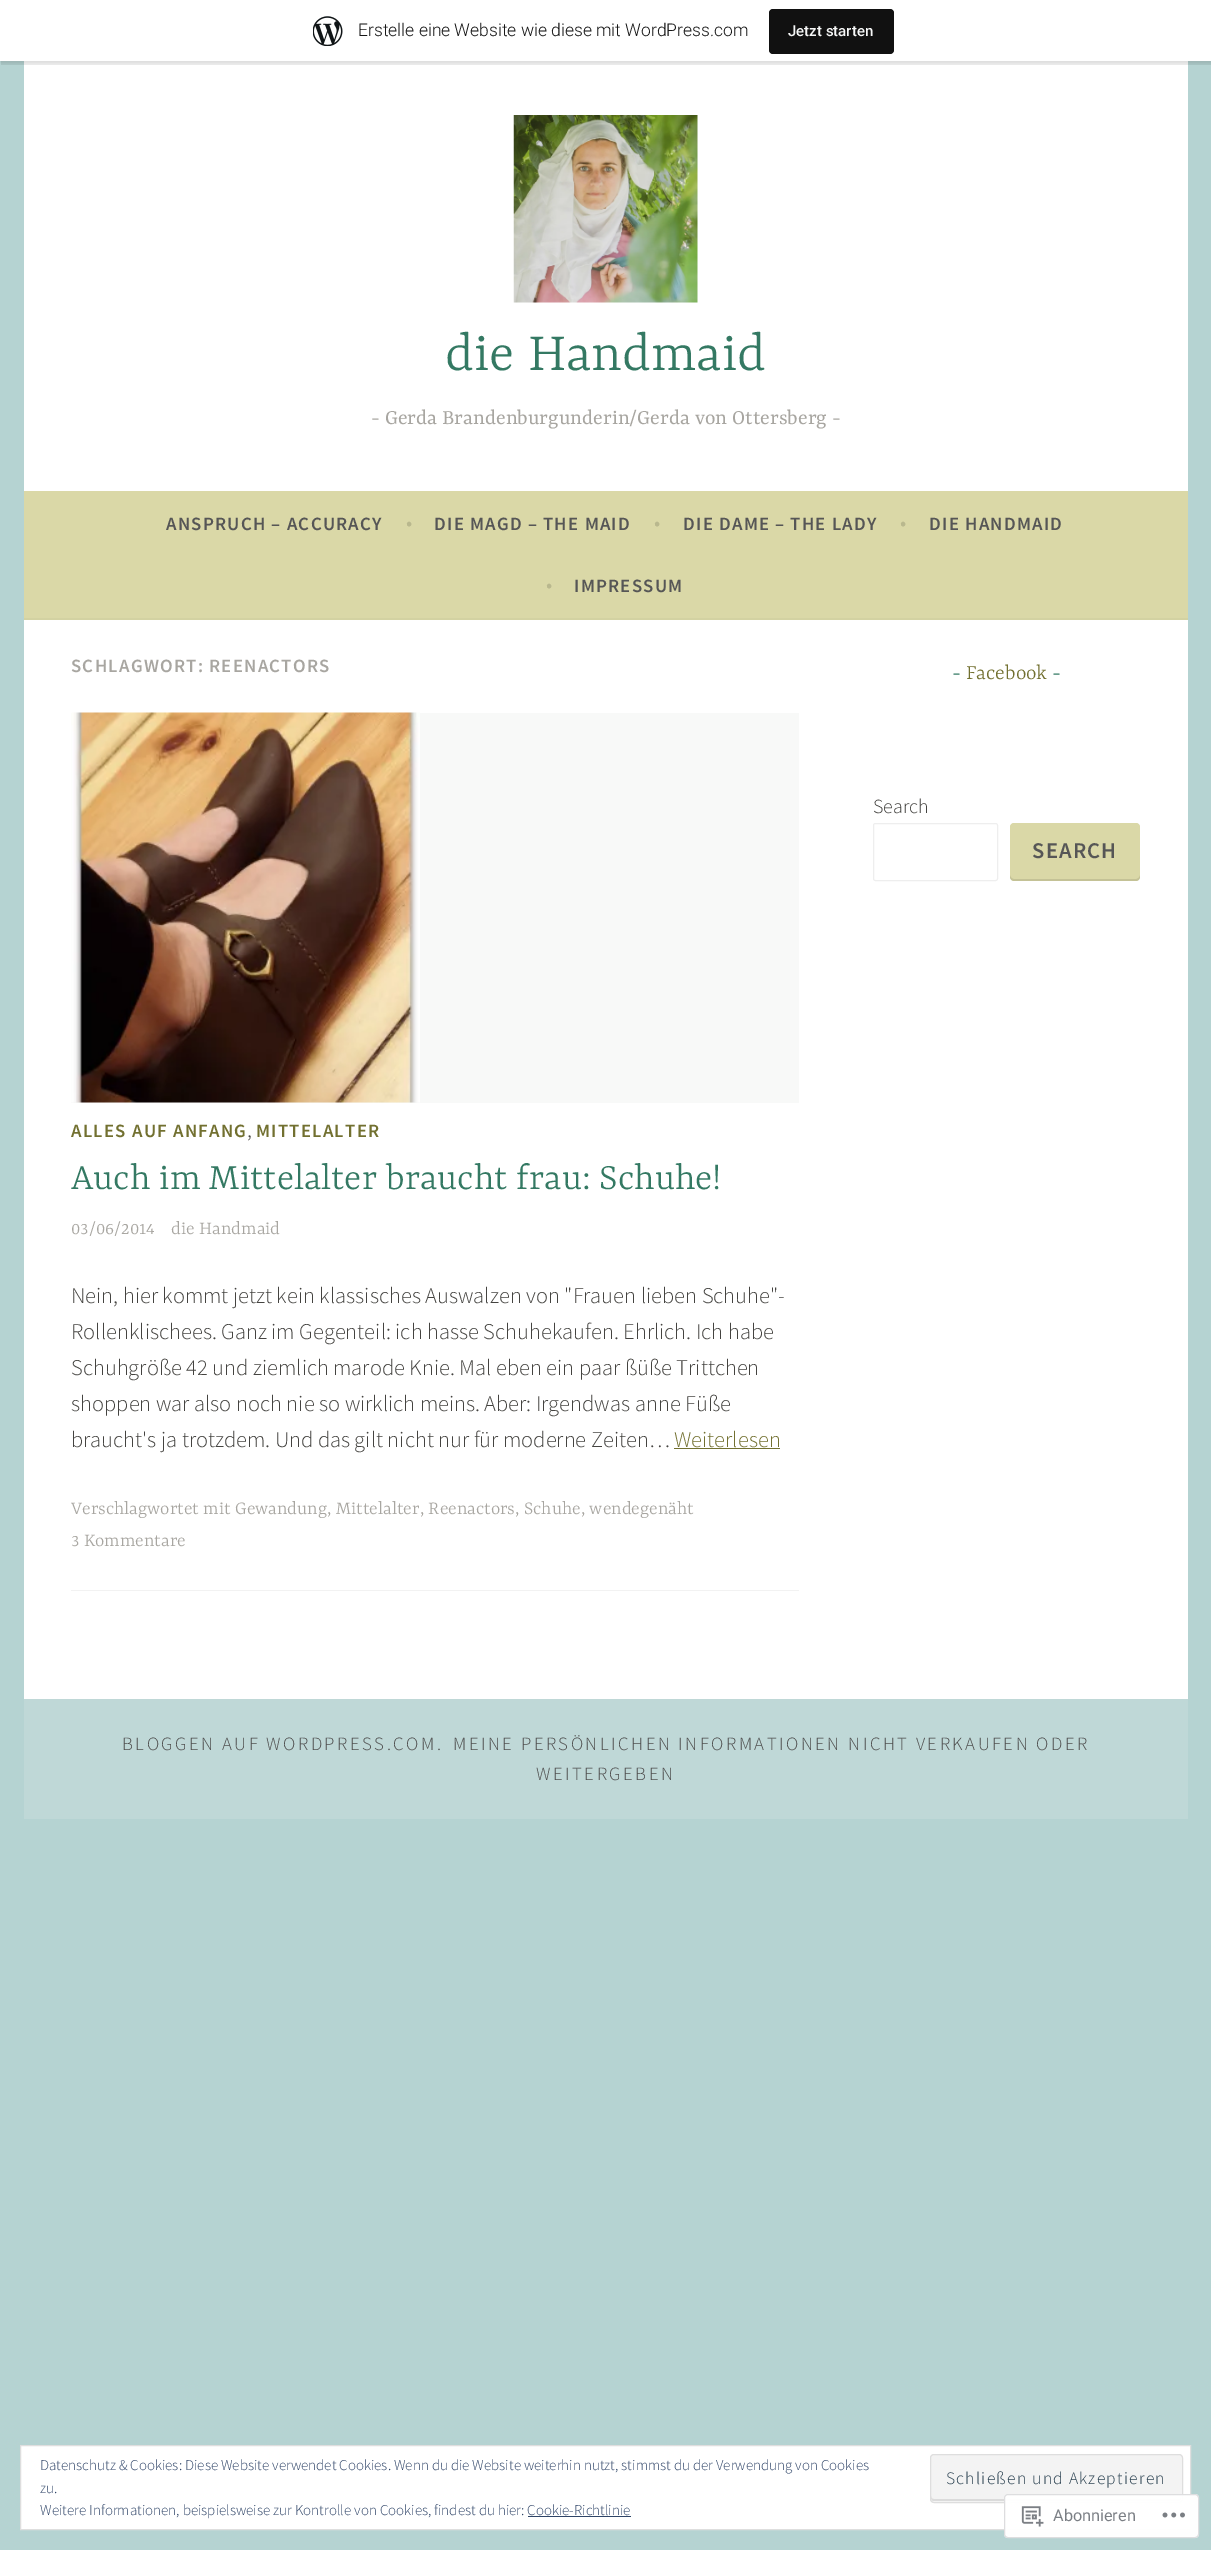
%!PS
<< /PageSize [1211 2550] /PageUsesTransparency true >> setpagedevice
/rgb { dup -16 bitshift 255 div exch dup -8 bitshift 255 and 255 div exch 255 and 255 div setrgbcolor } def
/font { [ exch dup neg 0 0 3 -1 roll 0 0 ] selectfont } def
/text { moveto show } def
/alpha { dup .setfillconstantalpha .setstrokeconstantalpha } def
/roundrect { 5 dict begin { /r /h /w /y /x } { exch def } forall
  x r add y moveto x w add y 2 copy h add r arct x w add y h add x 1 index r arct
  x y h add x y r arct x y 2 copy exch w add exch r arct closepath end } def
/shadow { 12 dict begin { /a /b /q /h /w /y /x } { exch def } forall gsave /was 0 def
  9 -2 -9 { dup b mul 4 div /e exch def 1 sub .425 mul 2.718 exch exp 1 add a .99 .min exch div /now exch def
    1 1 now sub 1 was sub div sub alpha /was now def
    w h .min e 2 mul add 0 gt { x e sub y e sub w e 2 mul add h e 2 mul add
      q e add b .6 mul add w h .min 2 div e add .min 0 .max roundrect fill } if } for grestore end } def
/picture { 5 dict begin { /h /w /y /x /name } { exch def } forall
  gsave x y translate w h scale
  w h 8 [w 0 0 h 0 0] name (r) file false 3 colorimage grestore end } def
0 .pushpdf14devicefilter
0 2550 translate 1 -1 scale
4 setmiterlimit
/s1 { /Roboto-Light 17.5 font 16#171717 rgb } def
/s2 { /Roboto-Medium 15 font 16#F6F7F7 rgb } def
/s3 { /Yrsa-Light 58.75 font 16#347963 rgb } def
/s4 { /Yrsa-Regular 22.5 font 16#A8A6A1 rgb } def
/s5 { /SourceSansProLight-Light 22.5 font 16#B9B88E rgb } def
/s6 { /SourceSansProLight-Light 22.5 font 16#444340 rgb } def
/s7 { /Yrsa-Light 40 font 16#347963 rgb } def
/s8 { /Yrsa-Light 20 font 16#A8A6A1 rgb } def
/s9 { /SourceSansProLight-Light 22.5 font 16#727030 rgb } def
/s10 { /Yrsa-Light 22.5 font 16#347963 rgb } def
/s11 { /Yrsa-Light 22.5 font 16#727030 rgb } def
/s12 { /SourceSansProLight-Light 20 font 16#444340 rgb } def
/s13 { /SourceSansProLight-Light 15 font 16#2E4467 rgb } def
/s14 { /Roboto-Regular 16.25 font 16#7B7F85 rgb } def
16#B5D3D2 rgb
0 0 1211 2550 rectfill
16#FFFFFF rgb
24 61 1164 430 rectfill
16#000000 rgb
0 1 1211 62 0 1 0.05 shadow
0.08 alpha
1 61 moveto 1 65 lineto 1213 65 lineto 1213 4 lineto 1211 4 lineto 1211 61 lineto closepath fill
1 alpha
16#FFFFFF rgb
0 0 1211 61 rectfill
(pic1.raw) 313 16 30 30 picture
s1
(Erstelle eine Website wie diese mit WordPress.com) 358 36 text
16#111111 rgb
769 9 125 45 4 roundrect fill
s2
(Jetzt starten) 788 36 text
(pic2.raw) 513 115 185 188 picture
s3
(die Handmaid) 445 370 text
s4
(- Gerda Brandenburgunderin/Gerda von Ottersberg -) 371 424 text
16#DAD8A7 rgb
24 491 1164 127 rectfill
16#D3D2A2 rgb
24 618 1164 2 rectfill
/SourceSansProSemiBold-SemiBold 18.75 font
16#565656 rgb
166 530 moveto 1.25 0 (ANSPRUCH – ACCURACY) ashow
s5
(•) 406 530 text
/SourceSansProSemiBold-SemiBold 18.75 font
16#565656 rgb
434 530 moveto 1.25 0 (DIE MAGD – THE MAID) ashow
s5
(•) 654 530 text
/SourceSansProSemiBold-SemiBold 18.75 font
16#565656 rgb
683 530 moveto 1.25 0 (DIE DAME – THE LADY) ashow
s5
(•) 900 530 text
/SourceSansProSemiBold-SemiBold 18.75 font
16#565656 rgb
929 530 moveto 1.25 0 (DIE HANDMAID) ashow
s5
(•) 546 592 text
/SourceSansProSemiBold-SemiBold 18.75 font
16#565656 rgb
574 592 moveto 1.25 0 (IMPRESSUM) ashow
16#FFFFFF rgb
24 620 1164 1079 rectfill
16#A8A6A1 rgb
71 672 moveto 1.25 0 (SCHLAGWORT: REENACTORS) ashow
16#F8F9F8 rgb
71 713 728 390 rectfill
(pic3.raw) 71 712 349 391 picture
16#727030 rgb
71 1137 moveto 1.25 0 (ALLES AUF ANFANG) ashow
256 1137 moveto 1.25 0 (MITTELALTER) ashow
s6
(,) 247 1137 text
s7
(Auch im Mittelalter braucht frau: Schuhe!) 71 1189 text
s8
(03/06/2014) 71 1234 text
(die Handmaid) 171 1234 text
s6
(Nein, hier kommt jetzt kein klassisches Auswalzen von "Frauen lieben Schuhe"-) 71 1303 text
(Rollenklischees. Ganz im Gegenteil: ich hasse Schuhekaufen. Ehrlich. Ich habe) 71 1339 text
(Schuhgröße 42 und ziemlich marode Knie. Mal eben ein paar ßüße Trittchen) 71 1375 text
(shoppen war also noch nie so wirklich meins. Aber: Irgendwas anne Füße) 71 1411 text
(braucht's ja trotzdem. Und das gilt nicht nur für moderne Zeiten…) 71 1447 text
s9
(Weiterlesen) 674 1447 text
674 1448 106 1 rectfill
s8
(Verschlagwortet mit Gewandung, Mittelalter, Reenactors, Schuhe, wendegenäht) 71 1514 text
(3 Kommentare) 71 1546 text
16#F2F2F2 rgb
71 1590 728 1 rectfill
s10
(-) 952 679 text
s11
(Facebook) 966 679 text
s10
(-) 1052 679 text
s12
(Search) 873 813 text
16#EEEEEE rgb
873.5 823.5 124 57 2 roundrect stroke
16#DAD8A7 rgb
1010 823 130 58 4 roundrect fill
0.1 alpha
16#000000 rgb
1010 875 moveto 1010 877 lineto 1010 879 1012 881 1014 881 curveto 1136 881 lineto 1138 881 1140 879 1140 877 curveto 1140 875 lineto 1140 877 1138 879 1136 879 curveto 1014 879 lineto 1012 879 1010 877 1010 875 curveto closepath fill
/SourceSansProSemiBold-SemiBold 22.5 font
1 alpha
16#565656 rgb
1032 858 moveto 1.25 0 (SEARCH) ashow
16#BFD8D7 rgb
24 1699 1164 120 rectfill
/SourceSansProLight-Light 18.75 font
16#4F4F4F rgb
122 1750 moveto 2.5 0 (BLOGGEN AUF WORDPRESS.COM.) ashow
453 1750 moveto 2.5 0 (MEINE PERSÖNLICHEN INFORMATIONEN NICHT VERKAUFEN ODER) ashow
536 1780 moveto 2.5 0 (WEITERGEBEN) ashow
16#FFFFFF rgb
20.5 2445.5 moveto 1190.5 2445.5 lineto 1190.5 2529.5 lineto 20.5 2529.5 lineto closepath gsave fill grestore
16#DEDEDE rgb
stroke
s13
(Datenschutz & Cookies: Diese Website verwendet Cookies. Wenn du die Website weiterhin nutzt, stimmst du der Verwendung von Cookies) 40 2470 text
16#F3F3F3 rgb
930 2454 253 49 4 roundrect fill
16#DBDBDB rgb
931 2496 moveto 931 2498 931 2501 934 2501 curveto 1178 2501 lineto 1181 2501 1181 2498 1181 2496 curveto 1181 2498 1180 2499 1179 2499 curveto 934 2499 lineto 932 2499 931 2498 931 2496 curveto closepath fill
16#DEDEDE rgb
930.5 2454.5 252 48 3.5 roundrect stroke
/SourceSansProLight-Light 17.5 font
16#2E4453 rgb
946 2484 moveto 1.25 0 (Schließen und Akzeptieren) ashow
s13
(zu.) 40 2493 text
(Weitere Informationen, beispielsweise zur Kontrolle von Cookies, findest du hier: Cookie-Richtlinie) 40 2515 text
528 2516 103 1 rectfill
0.98 alpha
16#FFFFFF rgb
1004 2494 195 44 4 roundrect fill
16#DCDCDE rgb
1004.5 2494.5 194 43 3.5 roundrect stroke
1 alpha
(pic4.raw) 1021 2506 23 21 picture
s14
(Abonnieren) 1053 2521 text
(pic5.raw) 1162 2512 23 6 picture
.poppdf14devicefilter showpage
